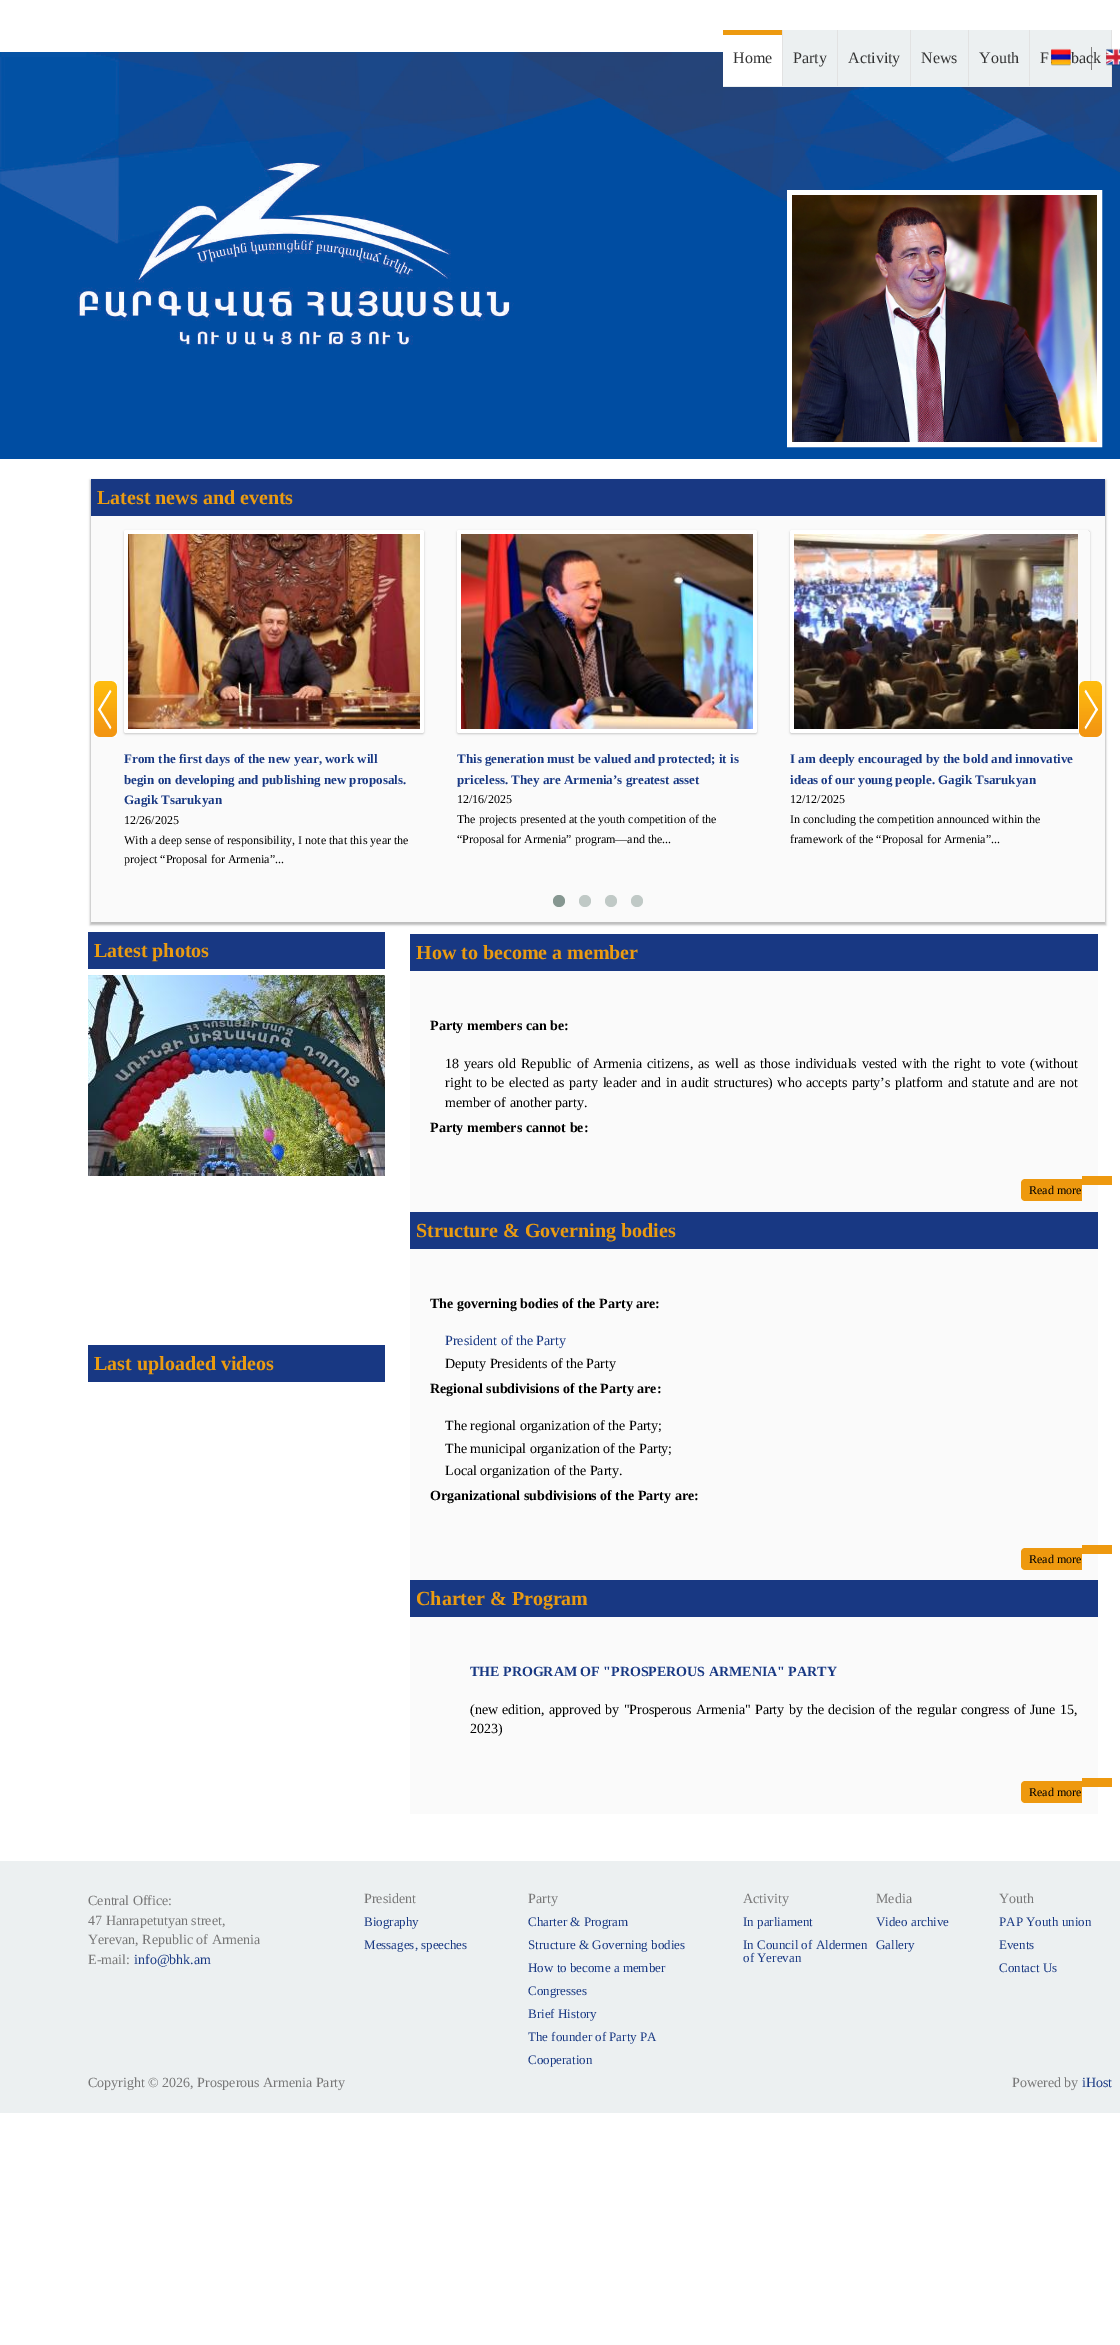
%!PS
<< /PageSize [1120 2345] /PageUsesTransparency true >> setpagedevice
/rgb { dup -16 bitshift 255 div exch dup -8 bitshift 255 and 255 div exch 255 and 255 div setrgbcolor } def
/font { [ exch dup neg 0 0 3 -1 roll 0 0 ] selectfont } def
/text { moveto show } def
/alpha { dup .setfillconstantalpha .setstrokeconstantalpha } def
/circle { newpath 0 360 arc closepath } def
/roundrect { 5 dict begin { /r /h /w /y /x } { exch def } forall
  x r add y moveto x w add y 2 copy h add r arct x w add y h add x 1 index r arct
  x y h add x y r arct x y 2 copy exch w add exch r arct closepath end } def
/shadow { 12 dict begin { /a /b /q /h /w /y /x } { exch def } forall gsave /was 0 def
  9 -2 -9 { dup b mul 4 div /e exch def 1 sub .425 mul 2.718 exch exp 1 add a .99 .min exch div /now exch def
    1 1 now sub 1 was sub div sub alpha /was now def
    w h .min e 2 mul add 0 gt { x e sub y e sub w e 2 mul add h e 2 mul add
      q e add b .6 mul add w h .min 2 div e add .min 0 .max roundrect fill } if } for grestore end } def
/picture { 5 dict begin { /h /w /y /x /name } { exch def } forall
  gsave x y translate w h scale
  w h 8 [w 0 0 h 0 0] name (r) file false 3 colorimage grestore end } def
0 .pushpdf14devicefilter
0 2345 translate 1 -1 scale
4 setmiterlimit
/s1 { /LiberationSerif-Regular 16 font 16#333333 rgb } def
/s2 { /LiberationSerif-Bold 20 font 16#EA9B11 rgb } def
/s3 { /LiberationSerif-Bold 13 font 16#183883 rgb } def
/s4 { /LiberationSerif-Regular 12 font 16#000000 rgb } def
/s5 { /LiberationSerif-Bold 14 font 16#000000 rgb } def
/s6 { /LiberationSerif-Regular 14 font 16#000000 rgb } def
/s7 { /LiberationSerif-Regular 14 font 16#183883 rgb } def
/s8 { /LiberationSerif-Bold 14 font 16#183883 rgb } def
/s9 { /LiberationSerif-Regular 14 font 16#777777 rgb } def
/s10 { /LiberationSerif-Regular 13 font 16#183883 rgb } def
16#FFFFFF rgb
0 0 1120 2345 rectfill
(pic1.raw) 0 52 1120 407 picture
16#ECF0F1 rgb
723 30 389 57 rectfill
16#807F7F rgb
1091 47 1 23 rectfill
s1
(back) 1071 63 text
(pic2.raw) 1051 48 20 18 picture
16#E2E2E2 rgb
1111 30 1 56 rectfill
(pic3.raw) 1106 48 14 18 picture
782 30 1 56 rectfill
16#FFFFFF rgb
723 35 59 51 rectfill
16#ED9A10 rgb
723 30 59 5 rectfill
s1
(Home) 733 63 text
16#E2E2E2 rgb
837 30 1 56 rectfill
s1
(Party) 793 63 text
16#E2E2E2 rgb
910 30 1 56 rectfill
s1
(Activity) 848 63 text
16#E2E2E2 rgb
968 30 1 56 rectfill
s1
(News) 921 63 text
16#E2E2E2 rgb
1029 30 1 56 rectfill
s1
(Youth) 979 63 text
(F) 1040 63 text
16#FFFFFF rgb
5 setlinewidth
789.5 192.5 310 252 rectstroke
(pic4.raw) 792 195 305 247 picture
16#565656 rgb
90 480 1016 445 0 1 0.39 shadow
16#FAFAFA rgb
91 516 1014 406 rectfill
16#183883 rgb
91 479 1014 37 rectfill
s2
(Latest news and events) 97 504 text
(pic5.raw) 94 681 23 56 picture
gsave
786 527 moveto 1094 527 lineto 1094 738 lineto 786 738 lineto closepath 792 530 moveto 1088 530 lineto 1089 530 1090 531 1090 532 curveto 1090 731 lineto 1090 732 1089 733 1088 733 curveto 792 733 lineto 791 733 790 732 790 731 curveto 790 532 lineto 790 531 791 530 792 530 curveto closepath eoclip newpath
16#000000 rgb
790 531 300 203 2 1 0.2 shadow
grestore
(pic6.raw) 1079 681 23 56 picture
16#869791 rgb
559 901 6 circle fill
16#C0C9C6 rgb
585 901 6 circle fill
611 901 6 circle fill
637 901 6 circle fill
16#000000 rgb
124 531 300 203 2 1 0.2 shadow
16#FFFFFF rgb
124 530 300 203 2 roundrect fill
(pic7.raw) 128 534 292 195 picture
s3
(From the first days of the new year, work will) 124 763 text
(begin on developing and publishing new proposals.) 124 784 text
(Gagik Tsarukyan) 124 804 text
s4
(12/26/2025) 124 824 text
(With a deep sense of responsibility, I note that this year the) 124 844 text
(project “Proposal for Armenia”...) 124 863 text
457 531 300 203 2 1 0.2 shadow
16#FFFFFF rgb
457 530 300 203 2 roundrect fill
(pic8.raw) 461 534 292 195 picture
s3
(This generation must be valued and protected; it is) 457 763 text
(priceless. They are Armenia’s greatest asset) 457 784 text
s4
(12/16/2025) 457 803 text
(The projects presented at the youth competition of the) 457 823 text
(“Proposal for Armenia” program—and the...) 457 843 text
16#FFFFFF rgb
792 530 moveto 1078 530 lineto 1078 733 lineto 792 733 lineto 791 733 790 732 790 731 curveto 790 532 lineto 790 531 791 530 792 530 curveto closepath fill
(pic9.raw) 794 534 284 195 picture
s3
(I am deeply encouraged by the bold and innovative) 790 763 text
(ideas of our young people. Gagik Tsarukyan) 790 784 text
s4
(12/12/2025) 790 803 text
(In concluding the competition announced within the) 790 823 text
(framework of the “Proposal for Armenia”...) 790 843 text
16#183883 rgb
88 932 297 37 rectfill
s2
(Latest photos) 94 957 text
(pic10.raw) 88 975 297 201 picture
16#183883 rgb
88 1345 297 37 rectfill
s2
(Last uploaded videos) 94 1370 text
16#FAFAFA rgb
410 971 688 241 rectfill
16#183883 rgb
410 934 688 37 rectfill
s2
(How to become a member) 416 959 text
s5
(Party members can be:) 430 1030 text
/LiberationSerif-Regular 14 font
445 1068 moveto 1.4 0 32 (18 years old Republic of Armenia citizens, as well as those individuals vested with the right to vote \(without) widthshow
445 1087 moveto 1 0 32 (right to be elected as party leader and in audit structures\) who accepts party’s platform and statute and are not) widthshow
(member of another party.) 445 1107 text
s5
(Party members cannot be:) 430 1132 text
16#EE990F rgb
1025 1179 moveto 1082 1179 lineto 1082 1201 lineto 1025 1201 lineto 1023 1201 1021 1199 1021 1197 curveto 1021 1183 lineto 1021 1181 1023 1179 1025 1179 curveto closepath fill
s4
(Read more) 1029 1194 text
16#EE990F rgb
1082 1176 30 9 rectfill
16#FAFAFA rgb
410 1249 688 331 rectfill
16#183883 rgb
410 1212 688 37 rectfill
s2
(Structure & Governing bodies) 416 1237 text
s5
(The governing bodies of the Party are:) 430 1308 text
s7
(President of the Party) 445 1345 text
s6
(Deputy Presidents of the Party) 445 1368 text
s5
(Regional subdivisions of the Party are:) 430 1393 text
s6
(The regional organization of the Party;) 445 1430 text
(The municipal organization of the Party;) 445 1453 text
(Local organization of the Party.) 445 1475 text
s5
(Organizational subdivisions of the Party are:) 430 1500 text
16#EE990F rgb
1025 1548 moveto 1082 1548 lineto 1082 1570 lineto 1025 1570 lineto 1023 1570 1021 1568 1021 1566 curveto 1021 1552 lineto 1021 1550 1023 1548 1025 1548 curveto closepath fill
s4
(Read more) 1029 1563 text
16#EE990F rgb
1082 1545 30 9 rectfill
16#FAFAFA rgb
410 1617 688 197 rectfill
16#183883 rgb
410 1580 688 37 rectfill
s2
(Charter & Program) 416 1605 text
s8
(THE PROGRAM OF "PROSPEROUS ARMENIA" PARTY) 470 1676 text
/LiberationSerif-Regular 14 font
16#000000 rgb
470 1714 moveto 0.8 0 32 (\(new edition, approved by "Prosperous Armenia" Party by the decision of the regular congress of June 15,) widthshow
(2023\)) 470 1733 text
16#EE990F rgb
1025 1781 moveto 1082 1781 lineto 1082 1803 lineto 1025 1803 lineto 1023 1803 1021 1801 1021 1799 curveto 1021 1785 lineto 1021 1783 1023 1781 1025 1781 curveto closepath fill
s4
(Read more) 1029 1796 text
16#EE990F rgb
1082 1778 30 9 rectfill
16#ECF0F1 rgb
0 1861 1120 252 rectfill
s9
(Central Office:) 88 1905 text
(47 Hanrapetutyan street,) 88 1925 text
(Yerevan, Republic of Armenia) 88 1944 text
(E-mail:) 88 1964 text
s7
(info@bhk.am) 134 1964 text
s9
(President) 364 1903 text
s10
(Biography) 364 1926 text
(Messages, speeches) 364 1949 text
s9
(Party) 528 1903 text
s10
(Charter & Program) 528 1926 text
(Structure & Governing bodies) 528 1949 text
(How to become a member) 528 1972 text
(Congresses) 528 1995 text
(Brief History) 528 2018 text
(The founder of Party PA) 528 2041 text
(Cooperation) 528 2064 text
s9
(Activity) 743 1903 text
s10
(In parliament) 743 1926 text
(In Council of Aldermen) 743 1949 text
(of Yerevan) 743 1962 text
s9
(Media) 876 1903 text
s10
(Video archive) 876 1926 text
(Gallery) 876 1949 text
s9
(Youth) 999 1903 text
s10
(PAP Youth union) 999 1926 text
(Events) 999 1949 text
(Contact Us) 999 1972 text
s9
(Copyright © 2026, Prosperous Armenia Party) 88 2087 text
(Powered by) 1012 2087 text
s7
(iHost) 1082 2087 text
.poppdf14devicefilter showpage
